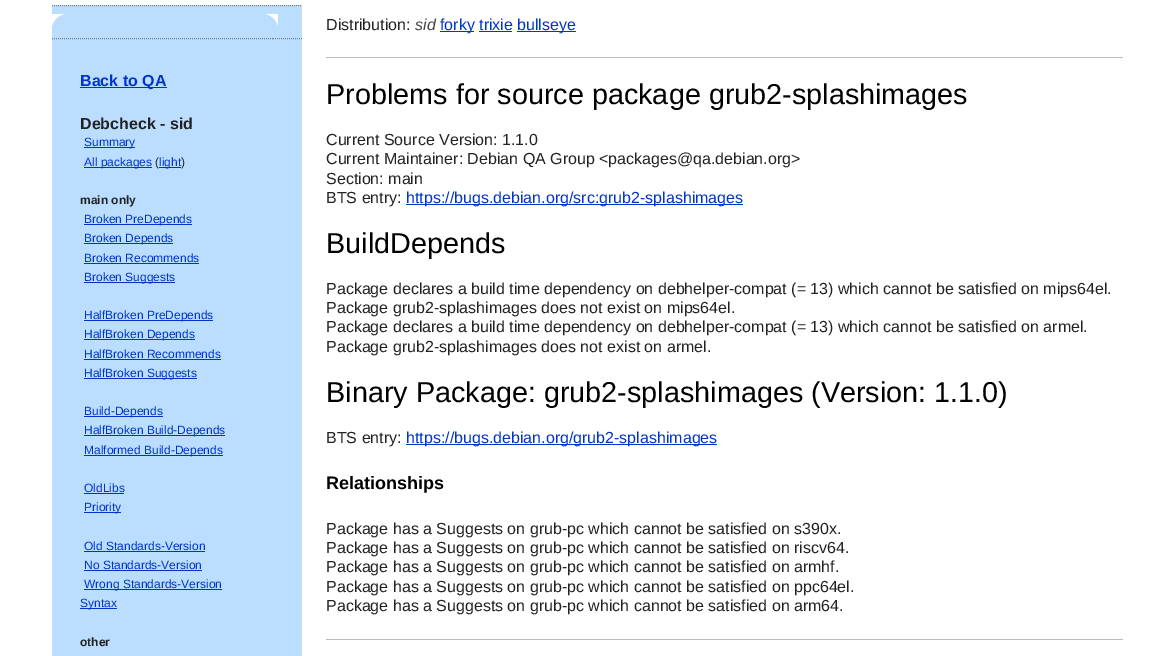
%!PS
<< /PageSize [1157 656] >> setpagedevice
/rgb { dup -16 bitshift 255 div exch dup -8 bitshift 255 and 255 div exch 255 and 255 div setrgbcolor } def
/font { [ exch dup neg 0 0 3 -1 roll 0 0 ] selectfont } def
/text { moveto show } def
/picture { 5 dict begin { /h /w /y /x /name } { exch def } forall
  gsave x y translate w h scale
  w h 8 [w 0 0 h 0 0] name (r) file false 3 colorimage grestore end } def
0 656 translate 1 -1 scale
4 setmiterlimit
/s1 { /LiberationSans-Bold 16 font 16#0035C7 rgb } def
/s2 { /LiberationSans-Bold 16 font 16#222222 rgb } def
/s3 { /LiberationSans-Regular 12 font 16#0035C7 rgb } def
/s4 { /LiberationSans-Regular 12 font 16#222222 rgb } def
/s5 { /LiberationSans-Bold 12 font 16#222222 rgb } def
/s6 { /LiberationSans-Regular 16 font 16#222222 rgb } def
/s7 { /LiberationSans-Italic 16 font 16#444444 rgb } def
/s8 { /LiberationSans-Regular 16 font 16#0035C7 rgb } def
/s9 { /LiberationSans-Regular 28.8 font 16#000000 rgb } def
/s10 { /LiberationSans-Bold 18 font 16#000000 rgb } def
16#FFFFFF rgb
0 0 1157 656 rectfill
16#BBDDFF rgb
52 5 250 651 rectfill
16#808080 rgb
[1 1] 0 setdash
52 5.5 moveto 302 5.5 lineto stroke
(pic1.raw) 52 14 12 12 picture
(pic2.raw) 266 14 12 12 picture
52 38.5 moveto 80 38.5 lineto stroke
273 38.5 moveto 302 38.5 lineto stroke
80 38.5 moveto 273 38.5 lineto stroke
16#0035C7 rgb
80 87 87 1 rectfill
s1
(Back to QA) 80 86 text
s2
(Debcheck - sid) 80 129 text
16#0035C7 rgb
84 147 51 1 rectfill
s3
(Summary) 84 146 text
84 167 68 1 rectfill
(All packages) 84 166 text
s4
(\() 155 166 text
16#0035C7 rgb
159 167 22 1 rectfill
(light) 159 166 text
s4
(\)) 181 166 text
s5
(main only) 80 204 text
16#0035C7 rgb
84 224 108 1 rectfill
s3
(Broken PreDepends) 84 223 text
84 243 89 1 rectfill
(Broken Depends) 84 242 text
(Broken Recommends) 84 262 text
84 263 115 1 rectfill
84 282 91 1 rectfill
(Broken Suggests) 84 281 text
84 320 129 1 rectfill
(HalfBroken PreDepends) 84 319 text
84 339 111 1 rectfill
(HalfBroken Depends) 84 338 text
(HalfBroken Recommends) 84 358 text
84 359 137 1 rectfill
84 378 113 1 rectfill
(HalfBroken Suggests) 84 377 text
84 416 79 1 rectfill
(Build-Depends) 84 415 text
84 435 141 1 rectfill
(HalfBroken Build-Depends) 84 434 text
84 455 139 1 rectfill
(Malformed Build-Depends) 84 454 text
(OldLibs) 84 492 text
84 493 40 1 rectfill
84 512 37 1 rectfill
(Priority) 84 511 text
(Old Standards-Version) 84 550 text
84 551 121 1 rectfill
(No Standards-Version) 84 569 text
84 570 118 1 rectfill
84 589 138 1 rectfill
(Wrong Standards-Version) 84 588 text
80 608 37 1 rectfill
(Syntax) 80 607 text
s5
(other) 80 646 text
s6
(Distribution:) 326 30 text
s7
(sid) 415 30 text
16#0035C7 rgb
440 31 34 1 rectfill
s8
(forky trixie) 440 30 text
517 31 59 1 rectfill
(bullseye) 517 30 text
479 31 33 1 rectfill
16#BBBBBB rgb
326 57 797 1 rectfill
s9
(Problems for source package grub2-splashimages) 326 104 text
s6
(Current Source Version: 1.1.0) 326 145 text
(Current Maintainer: Debian QA Group <packages@qa.debian.org>) 326 164 text
(Section: main) 326 184 text
(BTS entry:) 326 203 text
16#0035C7 rgb
406 204 337 1 rectfill
(https://bugs.debian.org/src:grub2-splashimages) 406 203 text
s9
(BuildDepends) 326 253 text
s6
(Package declares a build time dependency on debhelper-compat \(= 13\) which cannot be satisfied on mips64el.) 326 294 text
(Package grub2-splashimages does not exist on mips64el.) 326 313 text
(Package declares a build time dependency on debhelper-compat \(= 13\) which cannot be satisfied on armel.) 326 332 text
(Package grub2-splashimages does not exist on armel.) 326 352 text
s9
(Binary Package: grub2-splashimages \(Version: 1.1.0\)) 326 402 text
s6
(BTS entry:) 326 443 text
16#0035C7 rgb
406 444 311 1 rectfill
(https://bugs.debian.org/grub2-splashimages) 406 443 text
s10
(Relationships) 326 489 text
s6
(Package has a Suggests on grub-pc which cannot be satisfied on s390x.) 326 534 text
(Package has a Suggests on grub-pc which cannot be satisfied on riscv64.) 326 553 text
(Package has a Suggests on grub-pc which cannot be satisfied on armhf.) 326 572 text
(Package has a Suggests on grub-pc which cannot be satisfied on ppc64el.) 326 592 text
(Package has a Suggests on grub-pc which cannot be satisfied on arm64.) 326 611 text
16#BBBBBB rgb
326 639 797 1 rectfill
showpage
